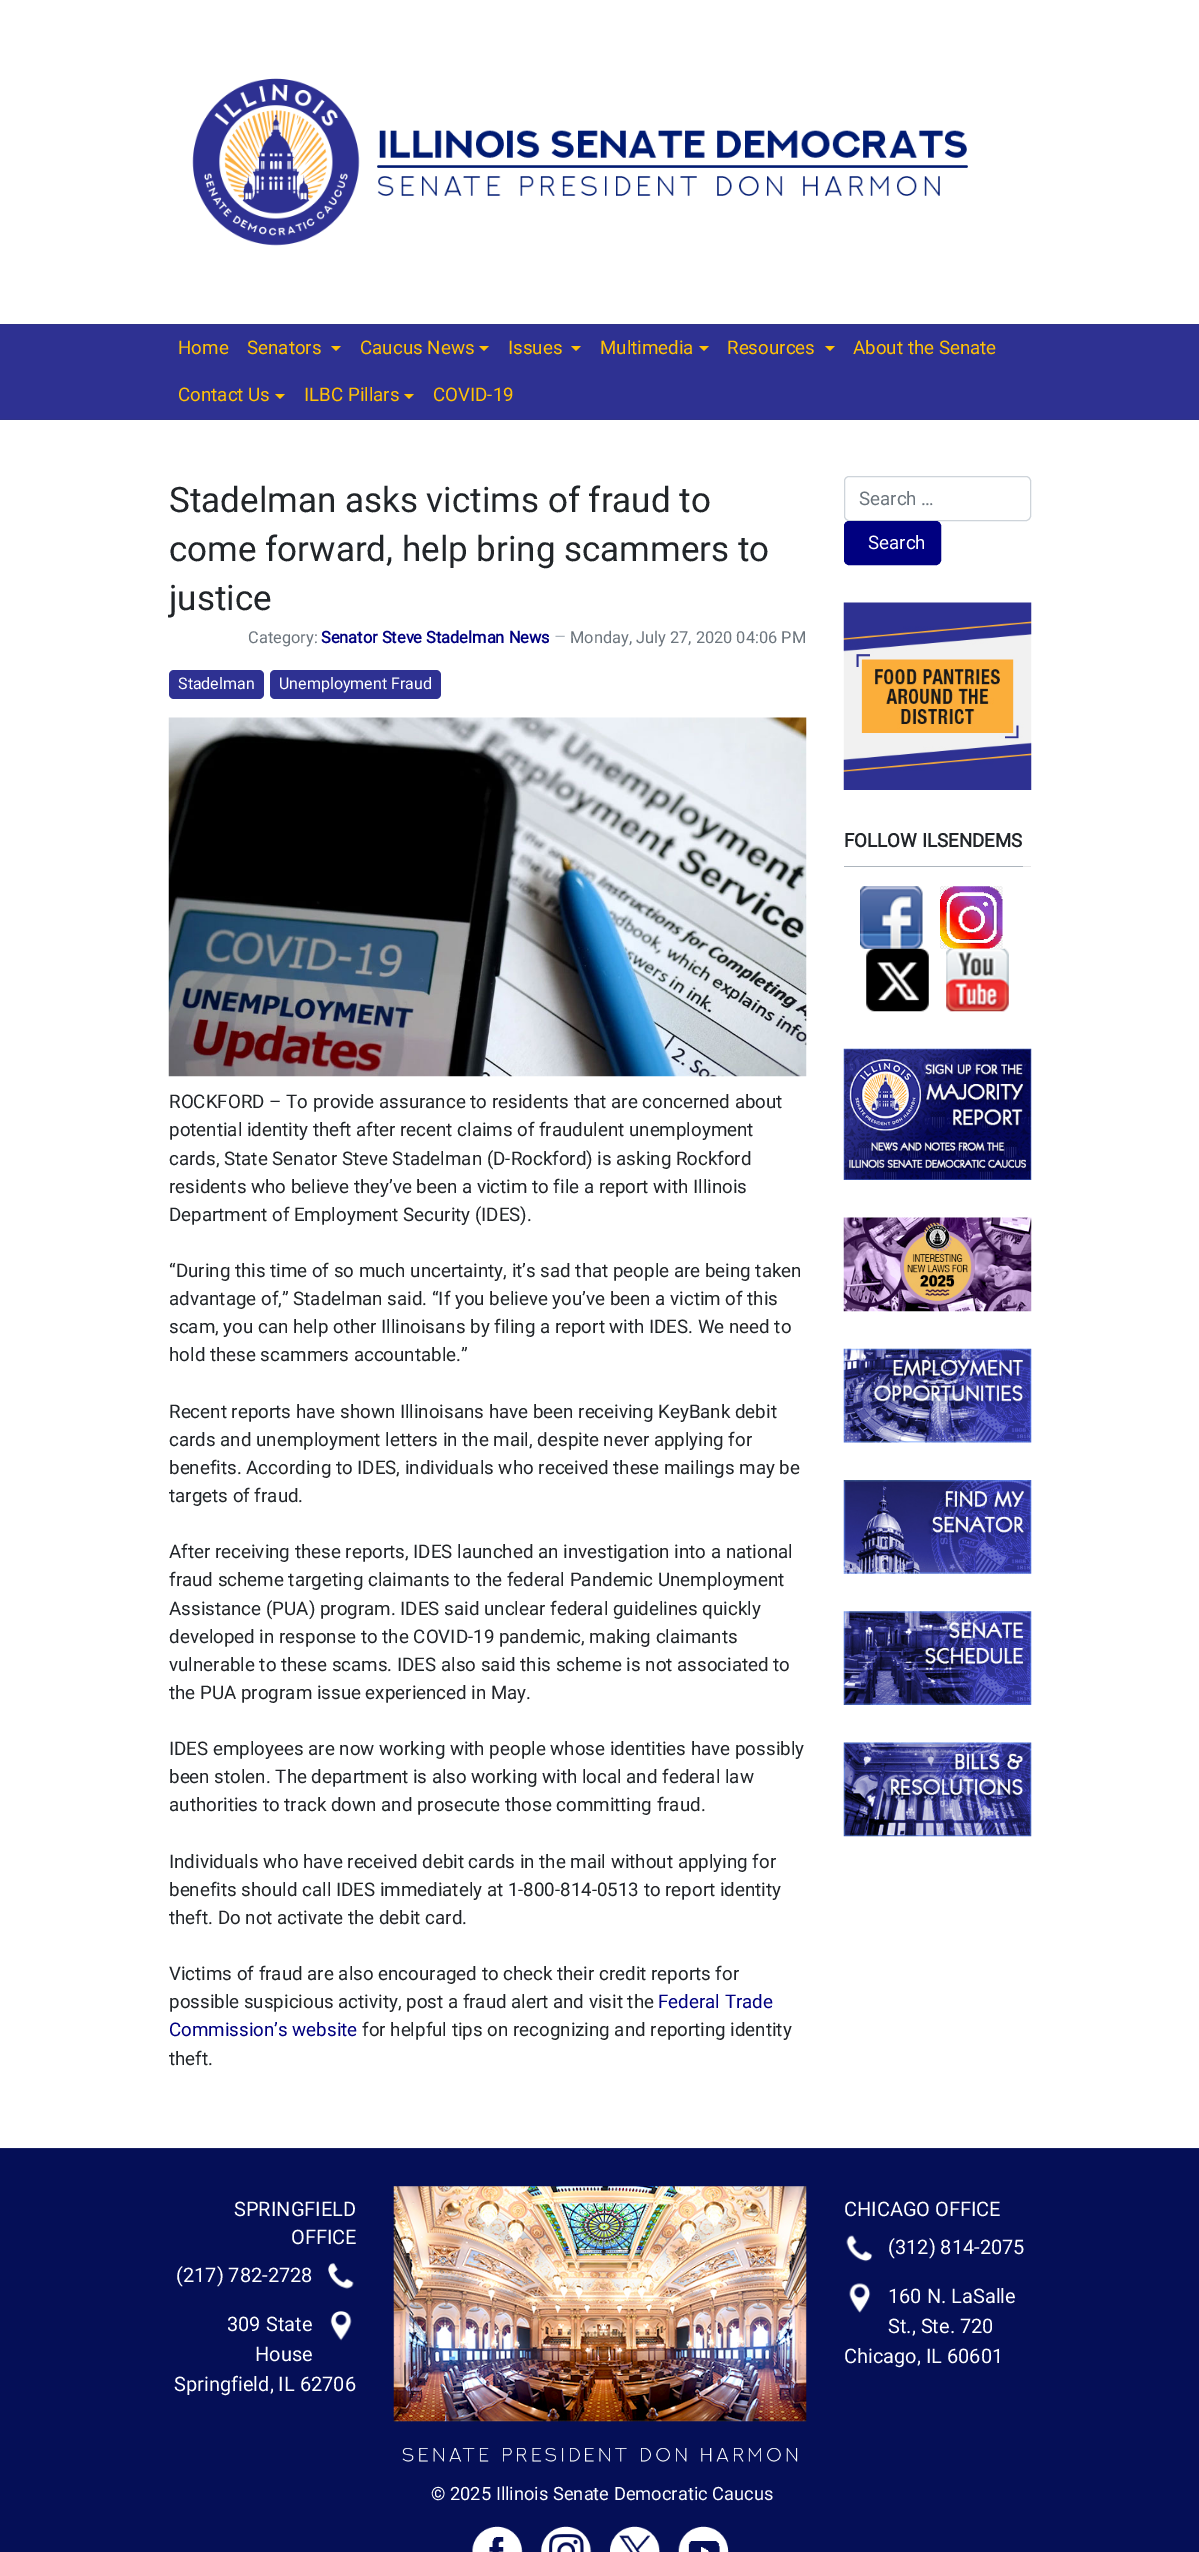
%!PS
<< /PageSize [1199 2552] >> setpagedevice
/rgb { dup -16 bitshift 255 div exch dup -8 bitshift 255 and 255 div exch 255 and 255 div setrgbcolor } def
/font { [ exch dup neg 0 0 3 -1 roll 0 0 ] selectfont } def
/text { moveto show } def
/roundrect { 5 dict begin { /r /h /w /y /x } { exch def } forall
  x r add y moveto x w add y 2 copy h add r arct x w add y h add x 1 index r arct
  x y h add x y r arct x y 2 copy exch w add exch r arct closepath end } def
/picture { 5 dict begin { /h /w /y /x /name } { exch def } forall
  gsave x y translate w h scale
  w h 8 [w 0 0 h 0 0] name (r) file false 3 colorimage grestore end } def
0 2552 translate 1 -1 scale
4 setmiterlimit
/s1 { /Roboto-Regular 18.75 font 16#FFC107 rgb } def
/s2 { /Roboto-Regular 35 font 16#212529 rgb } def
/s3 { /Roboto-Regular 16.4 font 16#6C757D rgb } def
/s4 { /Roboto-Bold 16.4 font 16#000080 rgb } def
/s5 { /Roboto-Regular 18.75 font 16#ADB5BD rgb } def
/s6 { /Roboto-Regular 16 font 16#FFFFFF rgb } def
/s7 { /Roboto-Regular 18.75 font 16#212529 rgb } def
/s8 { /Roboto-Regular 18.75 font 16#000080 rgb } def
/s9 { /Roboto-Regular 18.75 font 16#6C757D rgb } def
/s10 { /Roboto-Regular 18.75 font 16#FFFFFF rgb } def
/s11 { /Roboto-Bold 18.75 font 16#212529 rgb } def
/s12 { /Roboto-Regular 20 font 16#FFFFFF rgb } def
/s13 { /Roboto-Regular 18.3 font 16#FFFFFF rgb } def
16#FFFFFF rgb
0 0 1199 2552 rectfill
(pic1.raw) 192 78 776 168 picture
16#2E3192 rgb
0 325 1199 94 rectfill
16#2F3288 rgb
0 324 1199 1 rectfill
0 419 1199 1 rectfill
s1
(Home) 178 354 text
(Senators) 247 354 text
331 346 moveto 341 346 lineto 336 351 lineto closepath fill
(Caucus News) 360 354 text
479 346 moveto 489 346 lineto 484 351 lineto closepath fill
(Issues) 508 354 text
571 346 moveto 581 346 lineto 576 351 lineto closepath fill
(Multimedia) 600 354 text
699 346 moveto 709 346 lineto 704 351 lineto closepath fill
(Resources) 727 354 text
825 346 moveto 835 346 lineto 830 351 lineto closepath fill
(About the Senate) 853 354 text
(Contact Us) 178 401 text
275 394 moveto 285 394 lineto 280 399 lineto closepath fill
(ILBC Pillars) 304 401 text
404 394 moveto 414 394 lineto 409 399 lineto closepath fill
(COVID-19) 433 401 text
s2
(Stadelman asks victims of fraud to) 169 512 text
(come forward, help bring scammers to) 169 561 text
(justice) 169 610 text
s3
(Category:) 248 643 text
s4
(Senator Steve Stadelman News) 321 643 text
s5
(–) 554 643 text
s3
(Monday, July 27, 2020 04:06 PM) 570 643 text
16#2E3192 rgb
169 670 95 29 5 roundrect fill
s6
(Stadelman) 178 689 text
16#2E3192 rgb
270 670 171 29 5 roundrect fill
s6
(Unemployment Fraud) 279 689 text
(pic2.raw) 168 717 639 360 picture
s7
(ROCKFORD – To provide assurance to residents that are concerned about) 169 1108 text
(potential identity theft after recent claims of fraudulent unemployment) 169 1136 text
(cards, State Senator Steve Stadelman \(D-Rockford\) is asking Rockford) 169 1165 text
(residents who believe they’ve been a victim to file a report with Illinois) 169 1193 text
(Department of Employment Security \(IDES\).) 169 1221 text
(“During this time of so much uncertainty, it’s sad that people are being taken) 169 1277 text
(advantage of,” Stadelman said. “If you believe you’ve been a victim of this) 169 1305 text
(scam, you can help other Illinoisans by filing a report with IDES. We need to) 169 1333 text
(hold these scammers accountable.”) 169 1361 text
(Recent reports have shown Illinoisans have been receiving KeyBank debit) 169 1418 text
(cards and unemployment letters in the mail, despite never applying for) 169 1446 text
(benefits. According to IDES, individuals who received these mailings may be) 169 1474 text
(targets of fraud.) 169 1502 text
(After receiving these reports, IDES launched an investigation into a national) 169 1558 text
(fraud scheme targeting claimants to the federal Pandemic Unemployment) 169 1586 text
(Assistance \(PUA\) program. IDES said unclear federal guidelines quickly) 169 1615 text
(developed in response to the COVID-19 pandemic, making claimants) 169 1643 text
(vulnerable to these scams. IDES also said this scheme is not associated to) 169 1671 text
(the PUA program issue experienced in May.) 169 1699 text
(IDES employees are now working with people whose identities have possibly) 169 1755 text
(been stolen. The department is also working with local and federal law) 169 1783 text
(authorities to track down and prosecute those committing fraud.) 169 1811 text
(Individuals who have received debit cards in the mail without applying for) 169 1868 text
(benefits should call IDES immediately at 1-800-814-0513 to report identity) 169 1896 text
(theft. Do not activate the debit card.) 169 1924 text
(Victims of fraud are also encouraged to check their credit reports for) 169 1980 text
(possible suspicious activity, post a fraud alert and visit the) 169 2008 text
s8
(Federal Trade) 658 2008 text
(Commission’s website) 169 2036 text
s7
(for helpful tips on recognizing and reporting identity) 362 2036 text
(theft.) 169 2065 text
16#CED4DA rgb
844.5 476.5 186 44 4.5 roundrect stroke
s9
(Search …) 859 505 text
16#000080 rgb
844.5 521.5 96 43 4.5 roundrect gsave fill grestore
stroke
s10
(Search) 868 549 text
(pic3.raw) 843 602 189 188 picture
16#E7E7E8 rgb
1023 866 8 1 rectfill
16#ADB5BD rgb
844 866 179 1 rectfill
s11
(FOLLOW ILSENDEMS) 844 847 text
(pic4.raw) 860 886 63 63 picture
(pic5.raw) 940 886 63 63 picture
(pic6.raw) 866 948 63 64 picture
(pic7.raw) 946 948 63 64 picture
(pic8.raw) 843 1048 189 132 picture
(pic9.raw) 843 1217 189 95 picture
(pic10.raw) 843 1348 189 95 picture
(pic11.raw) 843 1480 189 94 picture
(pic12.raw) 843 1611 189 94 picture
(pic13.raw) 843 1742 189 95 picture
16#050F57 rgb
0 2149 1199 403 rectfill
16#172063 rgb
0 2148 1199 1 rectfill
s12
(SPRINGFIELD) 234 2216 text
(OFFICE) 291 2244 text
(\(217\) 782-2728) 176 2282 text
(pic14.raw) 328 2263 26 26 picture
(309 State) 227 2331 text
(pic15.raw) 330 2311 22 30 picture
(House) 255 2361 text
(Springfield, IL 62706) 174 2391 text
(CHICAGO OFFICE) 844 2216 text
(pic16.raw) 846 2235 27 27 picture
(\(312\) 814-2075) 888 2254 text
(pic17.raw) 849 2283 22 30 picture
(160 N. LaSalle) 888 2303 text
(St., Ste. 720) 888 2333 text
(Chicago, IL 60601) 844 2363 text
(pic18.raw) 393 2186 414 236 picture
(pic19.raw) 402 2448 396 14 picture
s13
(© 2025 Illinois Senate Democratic Caucus) 431 2500 text
(pic20.raw) 472 2526 51 26 picture
(pic21.raw) 541 2526 51 26 picture
(pic22.raw) 610 2526 50 26 picture
(pic23.raw) 678 2526 51 26 picture
showpage
